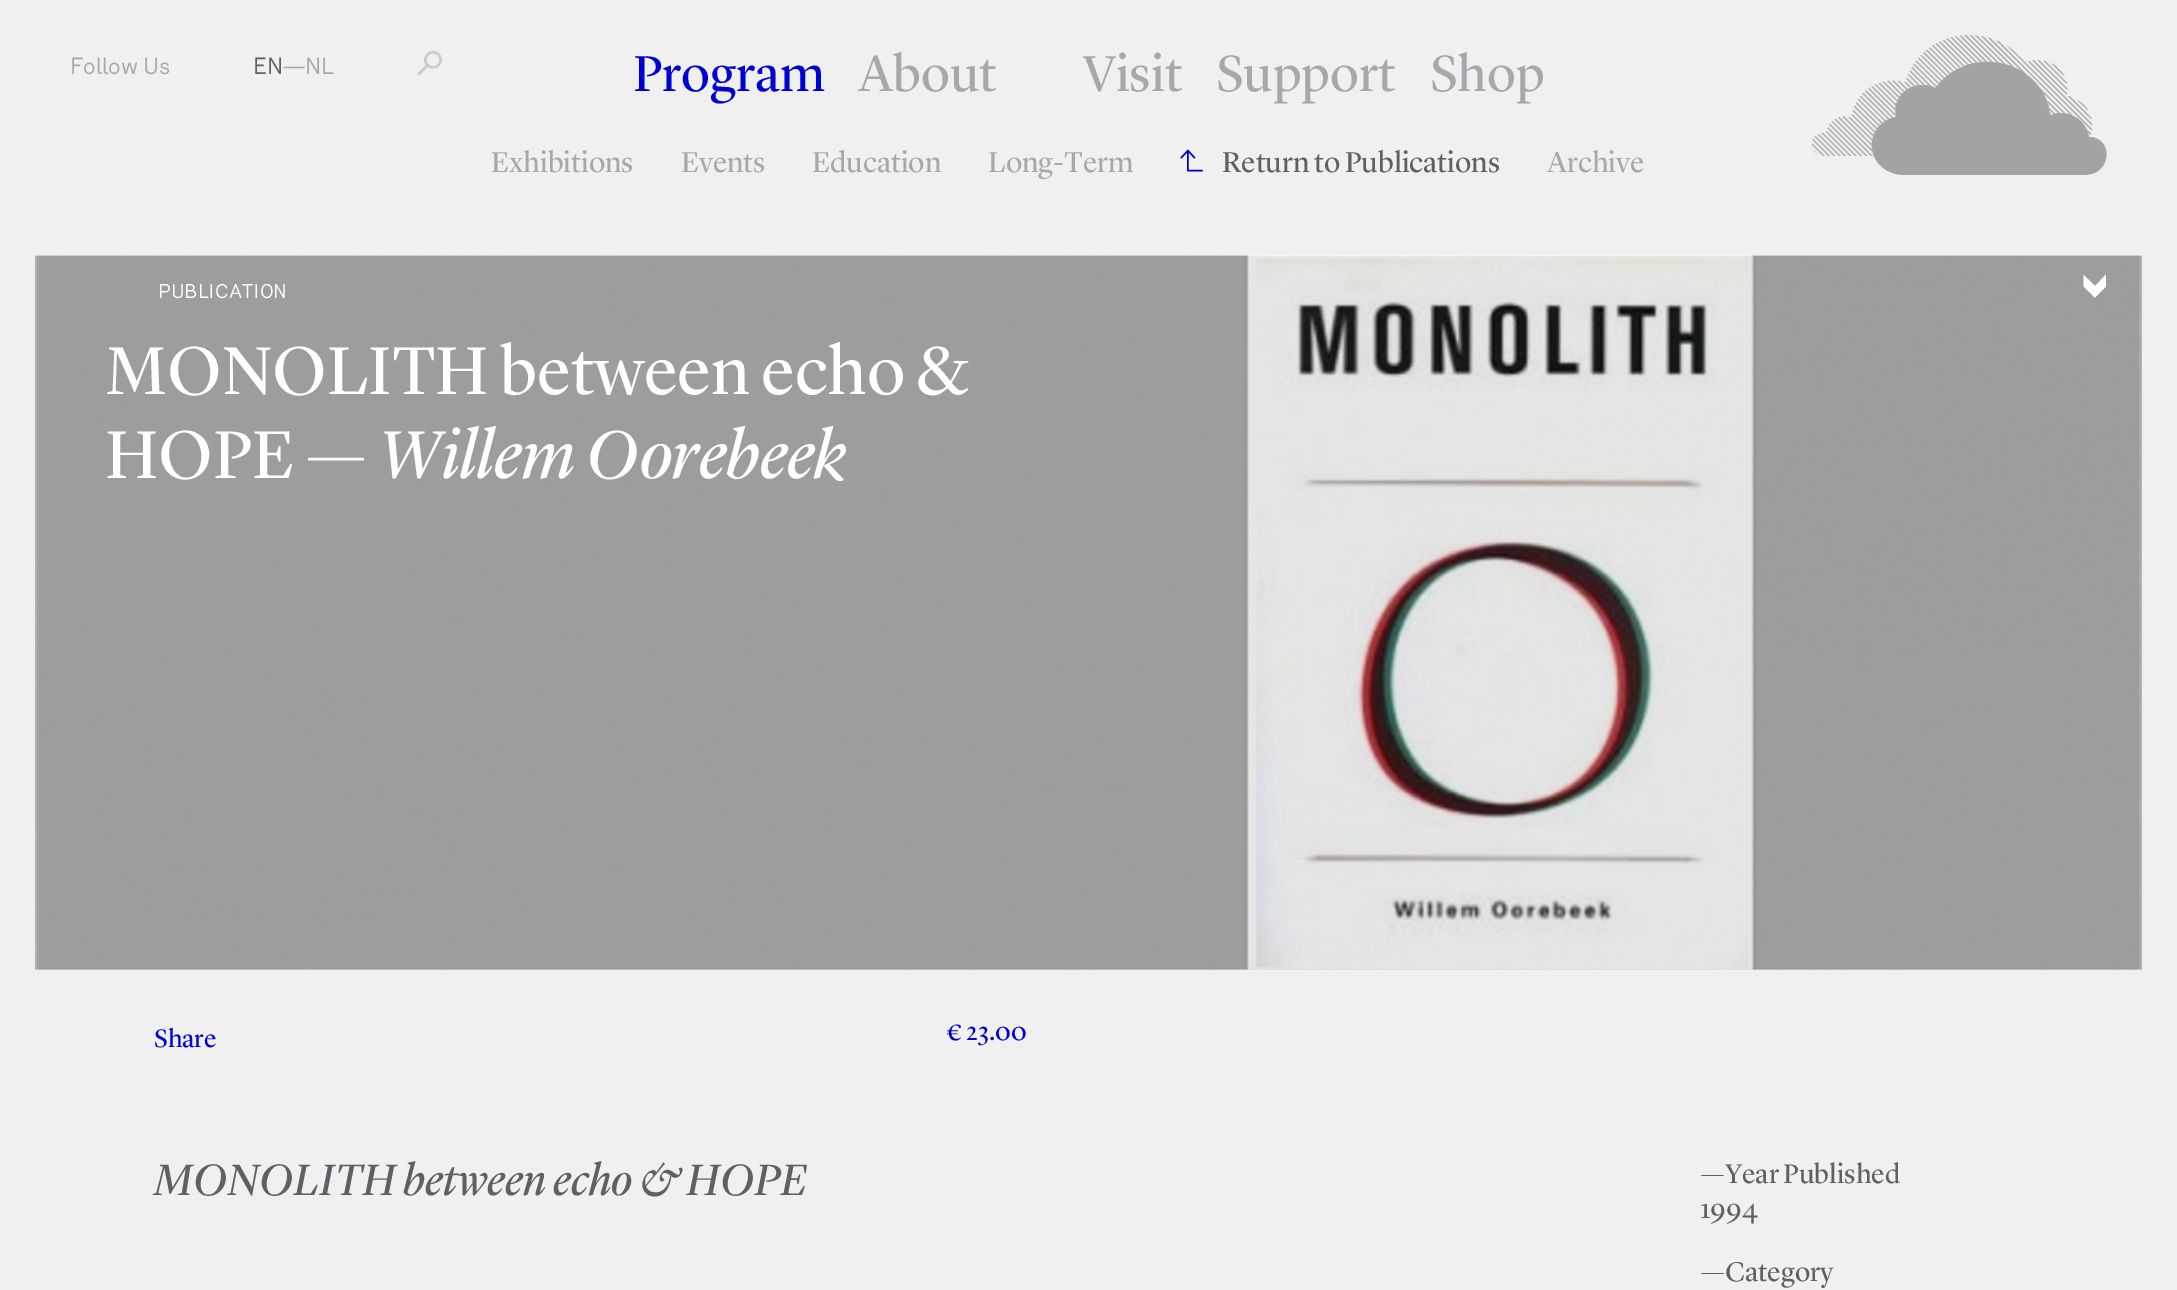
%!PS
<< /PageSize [2177 1290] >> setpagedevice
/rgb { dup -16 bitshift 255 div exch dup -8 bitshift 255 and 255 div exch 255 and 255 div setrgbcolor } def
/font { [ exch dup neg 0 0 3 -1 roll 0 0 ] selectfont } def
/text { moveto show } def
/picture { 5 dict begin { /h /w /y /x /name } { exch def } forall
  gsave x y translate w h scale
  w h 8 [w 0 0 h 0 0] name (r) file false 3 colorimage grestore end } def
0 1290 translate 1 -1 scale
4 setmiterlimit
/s1 { /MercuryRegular-Regular 22.75 font 16#A6A8AB rgb } def
/s2 { /MercuryRegular-Regular 22.75 font 16#5F5F64 rgb } def
/s3 { /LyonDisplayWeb-Regular 52.5 font 16#0000D3 rgb } def
/s4 { /LyonDisplayWeb-Regular 52.5 font 16#A6A8AB rgb } def
/s5 { /LyonDisplayWeb-Regular 29.75 font 16#A6A8AB rgb } def
/s6 { /LyonDisplayWeb-Regular 29.75 font 16#5F5F64 rgb } def
/s7 { /MercuryRegular-Regular 19.25 font 16#FFFFFF rgb } def
/s8 { /LyonDisplayWeb-Regular 70 font 16#FFFFFF rgb } def
/s9 { /LyonDisplayWeb-Italic 70 font 16#FFFFFF rgb } def
/s10 { /LyonDisplayWeb-Regular 26 font 16#0000D3 rgb } def
/s11 { /LyonDisplayWeb-Italic 45.5 font 16#5F5F64 rgb } def
/s12 { /LyonDisplayWeb-Regular 28 font 16#5F5F64 rgb } def
16#F0F0F0 rgb
0 0 2177 1290 rectfill
16#D8D8D8 rgb
35 969 2107 1 rectfill
s1
(Follow Us) 70 74 text
s2
(EN) 253 74 text
s1
(—NL) 283 74 text
(pic1.raw) 417 50 25 26 picture
s3
(Program) 633 91 text
s4
(About) 858 91 text
(Visit) 1083 91 text
(Support) 1216 91 text
(Shop) 1430 91 text
(pic2.raw) 1811 35 296 140 picture
s5
(Exhibitions) 491 172 text
(Events) 681 172 text
(Education) 812 172 text
(Long-Term) 988 172 text
(pic3.raw) 1180 149 23 23 picture
s6
(Return to Publications) 1222 172 text
s5
(Archive) 1547 172 text
(pic4.raw) 35 255 2107 715 picture
s7
(PUBLICATION) 158 298 text
2083.5 286.5 moveto 2083.5 274.5 lineto 2095 286 lineto 2106 274.5 lineto 2106 286.5 lineto 2095 297.5 lineto closepath fill
s8
(MONOLITH between echo &) 105 394 text
(HOPE —) 105 478 text
s9
(Willem Oorebeek) 378 478 text
s10
(Share) 154 1047 text
(€ 23.00) 946 1040 text
s11
(MONOLITH between echo & HOPE) 154 1195 text
s12
(—Year Published) 1700 1183 text
(1994) 1700 1218 text
(—Category) 1700 1281 text
showpage
